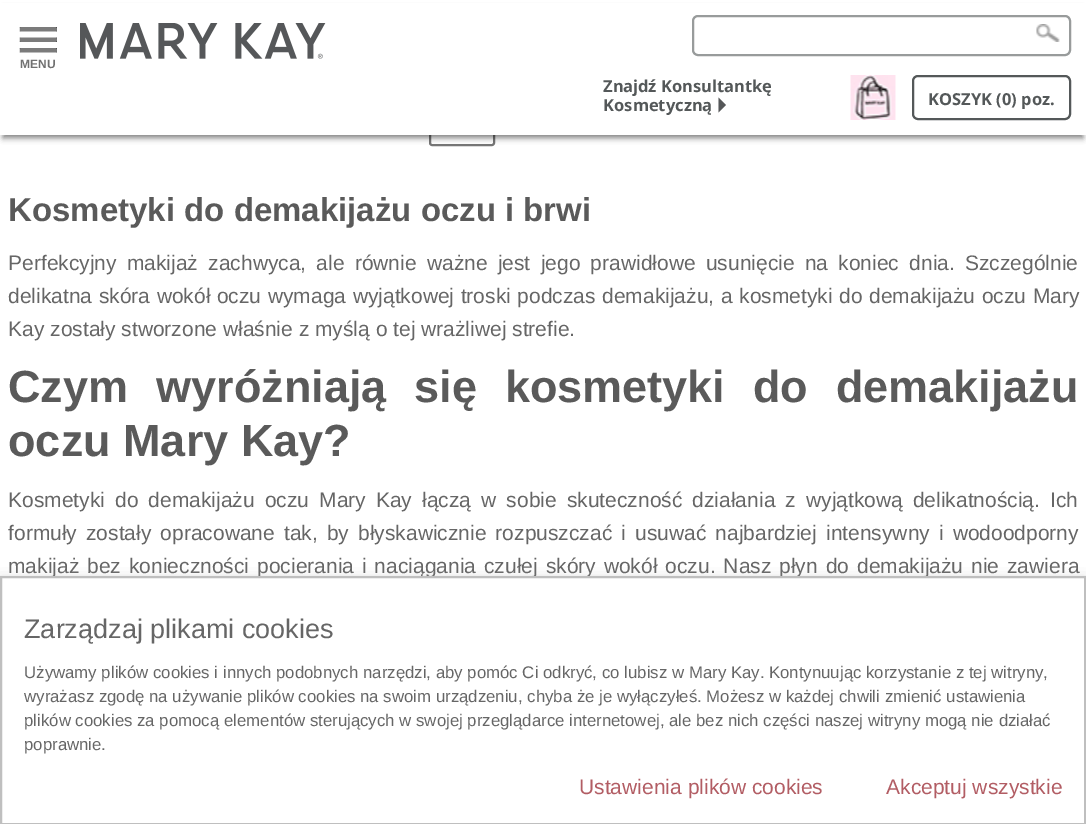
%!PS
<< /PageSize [1086 824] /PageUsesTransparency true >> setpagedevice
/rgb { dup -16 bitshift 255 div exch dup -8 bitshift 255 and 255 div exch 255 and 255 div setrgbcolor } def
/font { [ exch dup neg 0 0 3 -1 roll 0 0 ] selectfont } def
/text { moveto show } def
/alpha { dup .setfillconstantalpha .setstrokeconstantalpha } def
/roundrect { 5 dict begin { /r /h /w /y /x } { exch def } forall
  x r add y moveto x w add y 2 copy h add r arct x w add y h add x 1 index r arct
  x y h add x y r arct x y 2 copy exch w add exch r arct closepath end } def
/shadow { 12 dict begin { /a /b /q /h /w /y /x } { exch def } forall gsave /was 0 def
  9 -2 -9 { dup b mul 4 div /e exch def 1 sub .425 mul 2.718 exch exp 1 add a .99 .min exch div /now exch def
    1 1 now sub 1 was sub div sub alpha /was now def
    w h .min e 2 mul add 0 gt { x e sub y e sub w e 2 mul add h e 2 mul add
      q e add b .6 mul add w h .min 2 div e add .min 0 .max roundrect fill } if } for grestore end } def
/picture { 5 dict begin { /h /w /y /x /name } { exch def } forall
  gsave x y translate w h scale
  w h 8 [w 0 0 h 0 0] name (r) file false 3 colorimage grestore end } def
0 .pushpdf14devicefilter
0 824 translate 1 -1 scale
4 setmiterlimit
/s1 { /LiberationSans-Bold 12 font 16#707070 rgb } def
/s2 { /NotoSans-Bold 16.5 font 16#545859 rgb } def
/s3 { /LiberationSans-Bold 33 font 16#5A5A5A rgb } def
/s4 { /LiberationSans-Regular 21 font 16#666666 rgb } def
/s5 { /LiberationSans-Bold 45 font 16#5A5A5A rgb } def
/s6 { /LiberationSans-Regular 27 font 16#666666 rgb } def
/s7 { /LiberationSans-Regular 16.8 font 16#666666 rgb } def
/s8 { /LiberationSans-Regular 21 font 16#B25D64 rgb } def
16#FFFFFF rgb
0 0 1086 824 rectfill
16#767676 rgb
2 setlinewidth
430 108 64 37 2 roundrect stroke
16#000000 rgb
3 9 1080 129 0 3 0.5 shadow
16#FFFFFF rgb
0 3 1086 132 rectfill
(pic1.raw) 1036 24 24 18 picture
0.6 alpha
693 16 377 39 5 roundrect fill
1 alpha
16#989B9B rgb
693 16 377 39 5 roundrect stroke
(pic2.raw) 80 23 246 36 picture
(pic3.raw) 19 27 38 26 picture
s1
(MENU) 20 68 text
s2
(Znajdź Konsultantkę) 603 92 text
(Kosmetyczną) 603 111 text
16#555759 rgb
718.5 112.5 moveto 718.5 97.5 lineto 726 105 lineto closepath fill
(pic4.raw) 850 75 46 45 picture
16#545859 rgb
913 76 157 43 5 roundrect stroke
(KOSZYK \(0\) poz.) 928 105 text
s3
(Kosmetyki do demakijażu oczu i brwi) 8 221 text
/LiberationSans-Regular 21 font
16#666666 rgb
8 270 moveto 4.4 0 32 (Perfekcyjny makijaż zachwyca, ale równie ważne jest jego prawidłowe usunięcie na koniec dnia. Szczególnie) widthshow
8 303 moveto 0.75 0 32 (delikatna skóra wokół oczu wymaga wyjątkowej troski podczas demakijażu, a kosmetyki do demakijażu oczu Mary) widthshow
(Kay zostały stworzone właśnie z myślą o tej wrażliwej strefie.) 8 336 text
/LiberationSans-Bold 45 font
16#5A5A5A rgb
8 402 moveto 15.5 0 32 (Czym wyróżniają się kosmetyki do demakijażu) widthshow
(oczu Mary Kay?) 8 456 text
/LiberationSans-Regular 21 font
16#666666 rgb
8 507 moveto 4.25 0 32 (Kosmetyki do demakijażu oczu Mary Kay łączą w sobie skuteczność działania z wyjątkową delikatnością. Ich) widthshow
8 540 moveto 3.25 0 32 (formuły zostały opracowane tak, by błyskawicznie rozpuszczać i usuwać najbardziej intensywny i wodoodporny) widthshow
8 573 moveto 2.1 0 32 (makijaż bez konieczności pocierania i naciągania czułej skóry wokół oczu. Nasz płyn do demakijażu nie zawiera) widthshow
16#999999 rgb
0 584 1086 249 0 7.5 1 shadow
16#FFFFFF rgb
1 577 moveto 1085 577 lineto 1085 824 lineto 1 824 lineto closepath gsave fill grestore
16#BFBFBF rgb
stroke
s6
(Zarządzaj plikami cookies) 24 638 text
s7
(Używamy plików cookies i innych podobnych narzędzi, aby pomóc Ci odkryć, co lubisz w Mary Kay. Kontynuując korzystanie z tej witryny,) 24 678 text
(wyrażasz zgodę na używanie plików cookies na swoim urządzeniu, chyba że je wyłączyłeś. Możesz w każdej chwili zmienić ustawienia) 24 702 text
(plików cookies za pomocą elementów sterujących w swojej przeglądarce internetowej, ale bez nich części naszej witryny mogą nie działać) 24 726 text
(poprawnie.) 24 750 text
s8
(Ustawienia plików cookies) 579 794 text
(Akceptuj wszystkie) 886 794 text
.poppdf14devicefilter showpage
